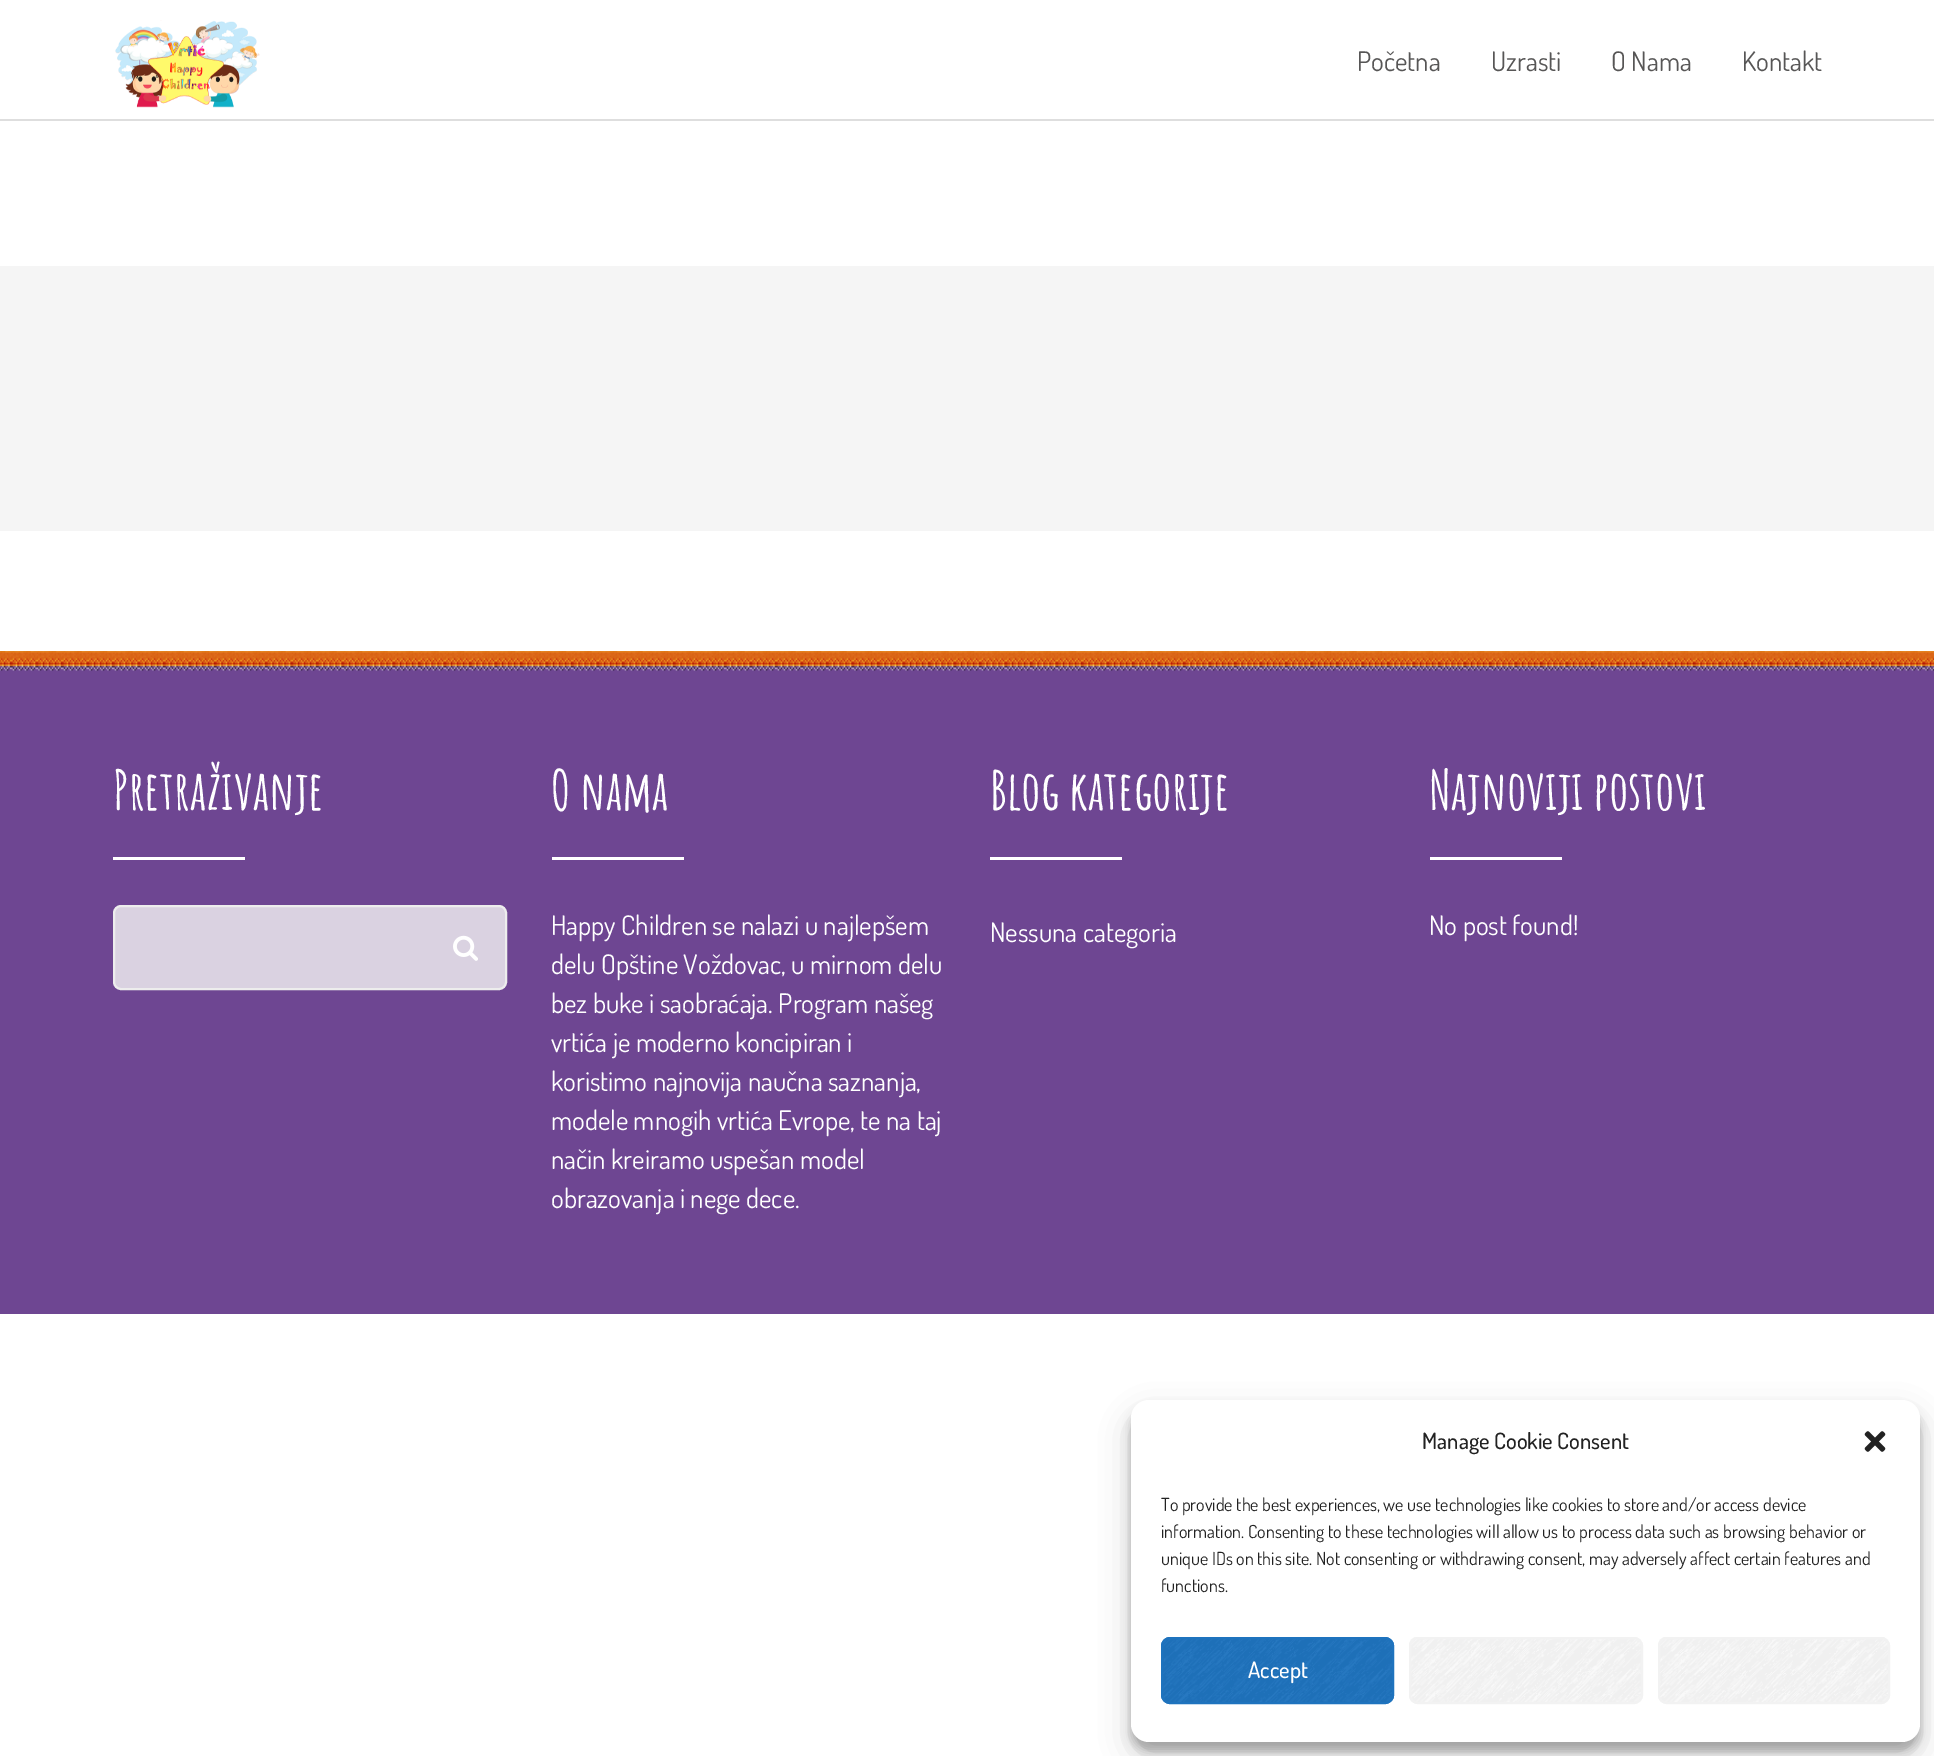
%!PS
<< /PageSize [1934 1756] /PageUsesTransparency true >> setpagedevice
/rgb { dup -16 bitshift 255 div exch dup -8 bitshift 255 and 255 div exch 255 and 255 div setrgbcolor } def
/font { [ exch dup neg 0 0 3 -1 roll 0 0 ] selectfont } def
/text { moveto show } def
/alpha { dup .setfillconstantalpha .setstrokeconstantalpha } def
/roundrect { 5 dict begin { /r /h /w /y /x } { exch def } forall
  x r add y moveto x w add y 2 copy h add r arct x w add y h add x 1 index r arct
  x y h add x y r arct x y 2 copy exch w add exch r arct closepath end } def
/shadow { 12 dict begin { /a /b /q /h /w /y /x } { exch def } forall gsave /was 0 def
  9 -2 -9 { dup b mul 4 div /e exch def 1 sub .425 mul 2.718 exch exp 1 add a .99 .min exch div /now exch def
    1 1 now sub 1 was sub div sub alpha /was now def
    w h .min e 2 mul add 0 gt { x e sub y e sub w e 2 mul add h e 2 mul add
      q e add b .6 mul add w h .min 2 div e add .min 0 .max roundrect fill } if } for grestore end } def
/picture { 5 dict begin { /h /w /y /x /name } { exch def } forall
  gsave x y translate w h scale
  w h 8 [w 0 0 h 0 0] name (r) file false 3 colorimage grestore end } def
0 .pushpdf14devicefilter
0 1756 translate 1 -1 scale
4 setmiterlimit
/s1 { /Dosis-Regular 27 font 16#575656 rgb } def
/s2 { /AmaticSC-Bold 54 font 16#FFFFFF rgb } def
/s3 { /Dosis-Regular 27 font 16#FFFFFF rgb } def
/s4 { /Dosis-Medium 22.5 font 16#222222 rgb } def
/s5 { /Dosis-Regular 18 font 16#222222 rgb } def
/s6 { /Dosis-Medium 22.5 font 16#FFFFFF rgb } def
16#FFFFFF rgb
0 0 1934 1756 rectfill
16#DEDEDE rgb
0 119 1934 2 rectfill
(pic1.raw) 115 20 145 88 picture
s1
(Početna) 1357 71 text
(Uzrasti) 1491 71 text
(O Nama) 1611 71 text
(Kontakt) 1742 71 text
16#F5F5F5 rgb
0 266 1934 265 rectfill
16#6E4692 rgb
0 665 1934 649 rectfill
(pic2.raw) 0 651 1934 20 picture
s2
(Pretraživanje) 113 810 text
113 857 132 3 rectfill
16#DAD2E1 rgb
114 906 392 83 7 roundrect gsave fill grestore
16#EDEDED rgb
2 setlinewidth
stroke
(pic3.raw) 453 935 25 26 picture
s2
(O nama) 551 810 text
552 857 132 3 rectfill
s3
(Happy Children se nalazi u najlepšem) 551 935 text
(delu Opštine Voždovac, u mirnom delu) 551 974 text
(bez buke i saobraćaja. Program našeg) 551 1013 text
(vrtića je moderno koncipiran i) 551 1052 text
(koristimo najnovija naučna saznanja,) 551 1091 text
(modele mnogih vrtića Evrope, te na taj) 551 1130 text
(način kreiramo uspešan model) 551 1169 text
(obrazovanja i nege dece.) 551 1208 text
s2
(Blog kategorije) 990 810 text
990 857 132 3 rectfill
s3
(Nessuna categoria) 990 942 text
s2
(Najnoviji postovi) 1429 810 text
1430 857 132 3 rectfill
s3
(No post found!) 1429 935 text
16#000000 rgb
1131 1409 789 342 18 4.5 0.23 shadow
1131 1415 789 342 18 15 0.19 shadow
16#FFFFFF rgb
1131 1400 789 342 18 roundrect fill
s4
(Manage Cookie Consent) 1422 1449 text
(pic4.raw) 1864 1431 22 21 picture
s5
(To provide the best experiences, we use technologies like cookies to store and/or access device) 1161 1511 text
(information. Consenting to these technologies will allow us to process data such as browsing behavior or) 1161 1538 text
(unique IDs on this site. Not consenting or withdrawing consent, may adversely affect certain features and) 1161 1565 text
(functions.) 1161 1592 text
16#1E73BE rgb
1161 1637 233 67 9 roundrect fill
(pic5.raw) 1161 1637 231 67 picture
1162 1638 231 65 8 roundrect stroke
s6
(Accept) 1248 1678 text
16#F9F9F9 rgb
1409 1637 234 67 9 roundrect fill
(pic6.raw) 1409 1637 232 67 picture
16#F2F2F2 rgb
1410 1638 232 65 8 roundrect stroke
16#F9F9F9 rgb
1658 1637 232 67 9 roundrect fill
(pic7.raw) 1658 1637 232 67 picture
16#F2F2F2 rgb
1659 1638 230 65 8 roundrect stroke
.poppdf14devicefilter showpage
